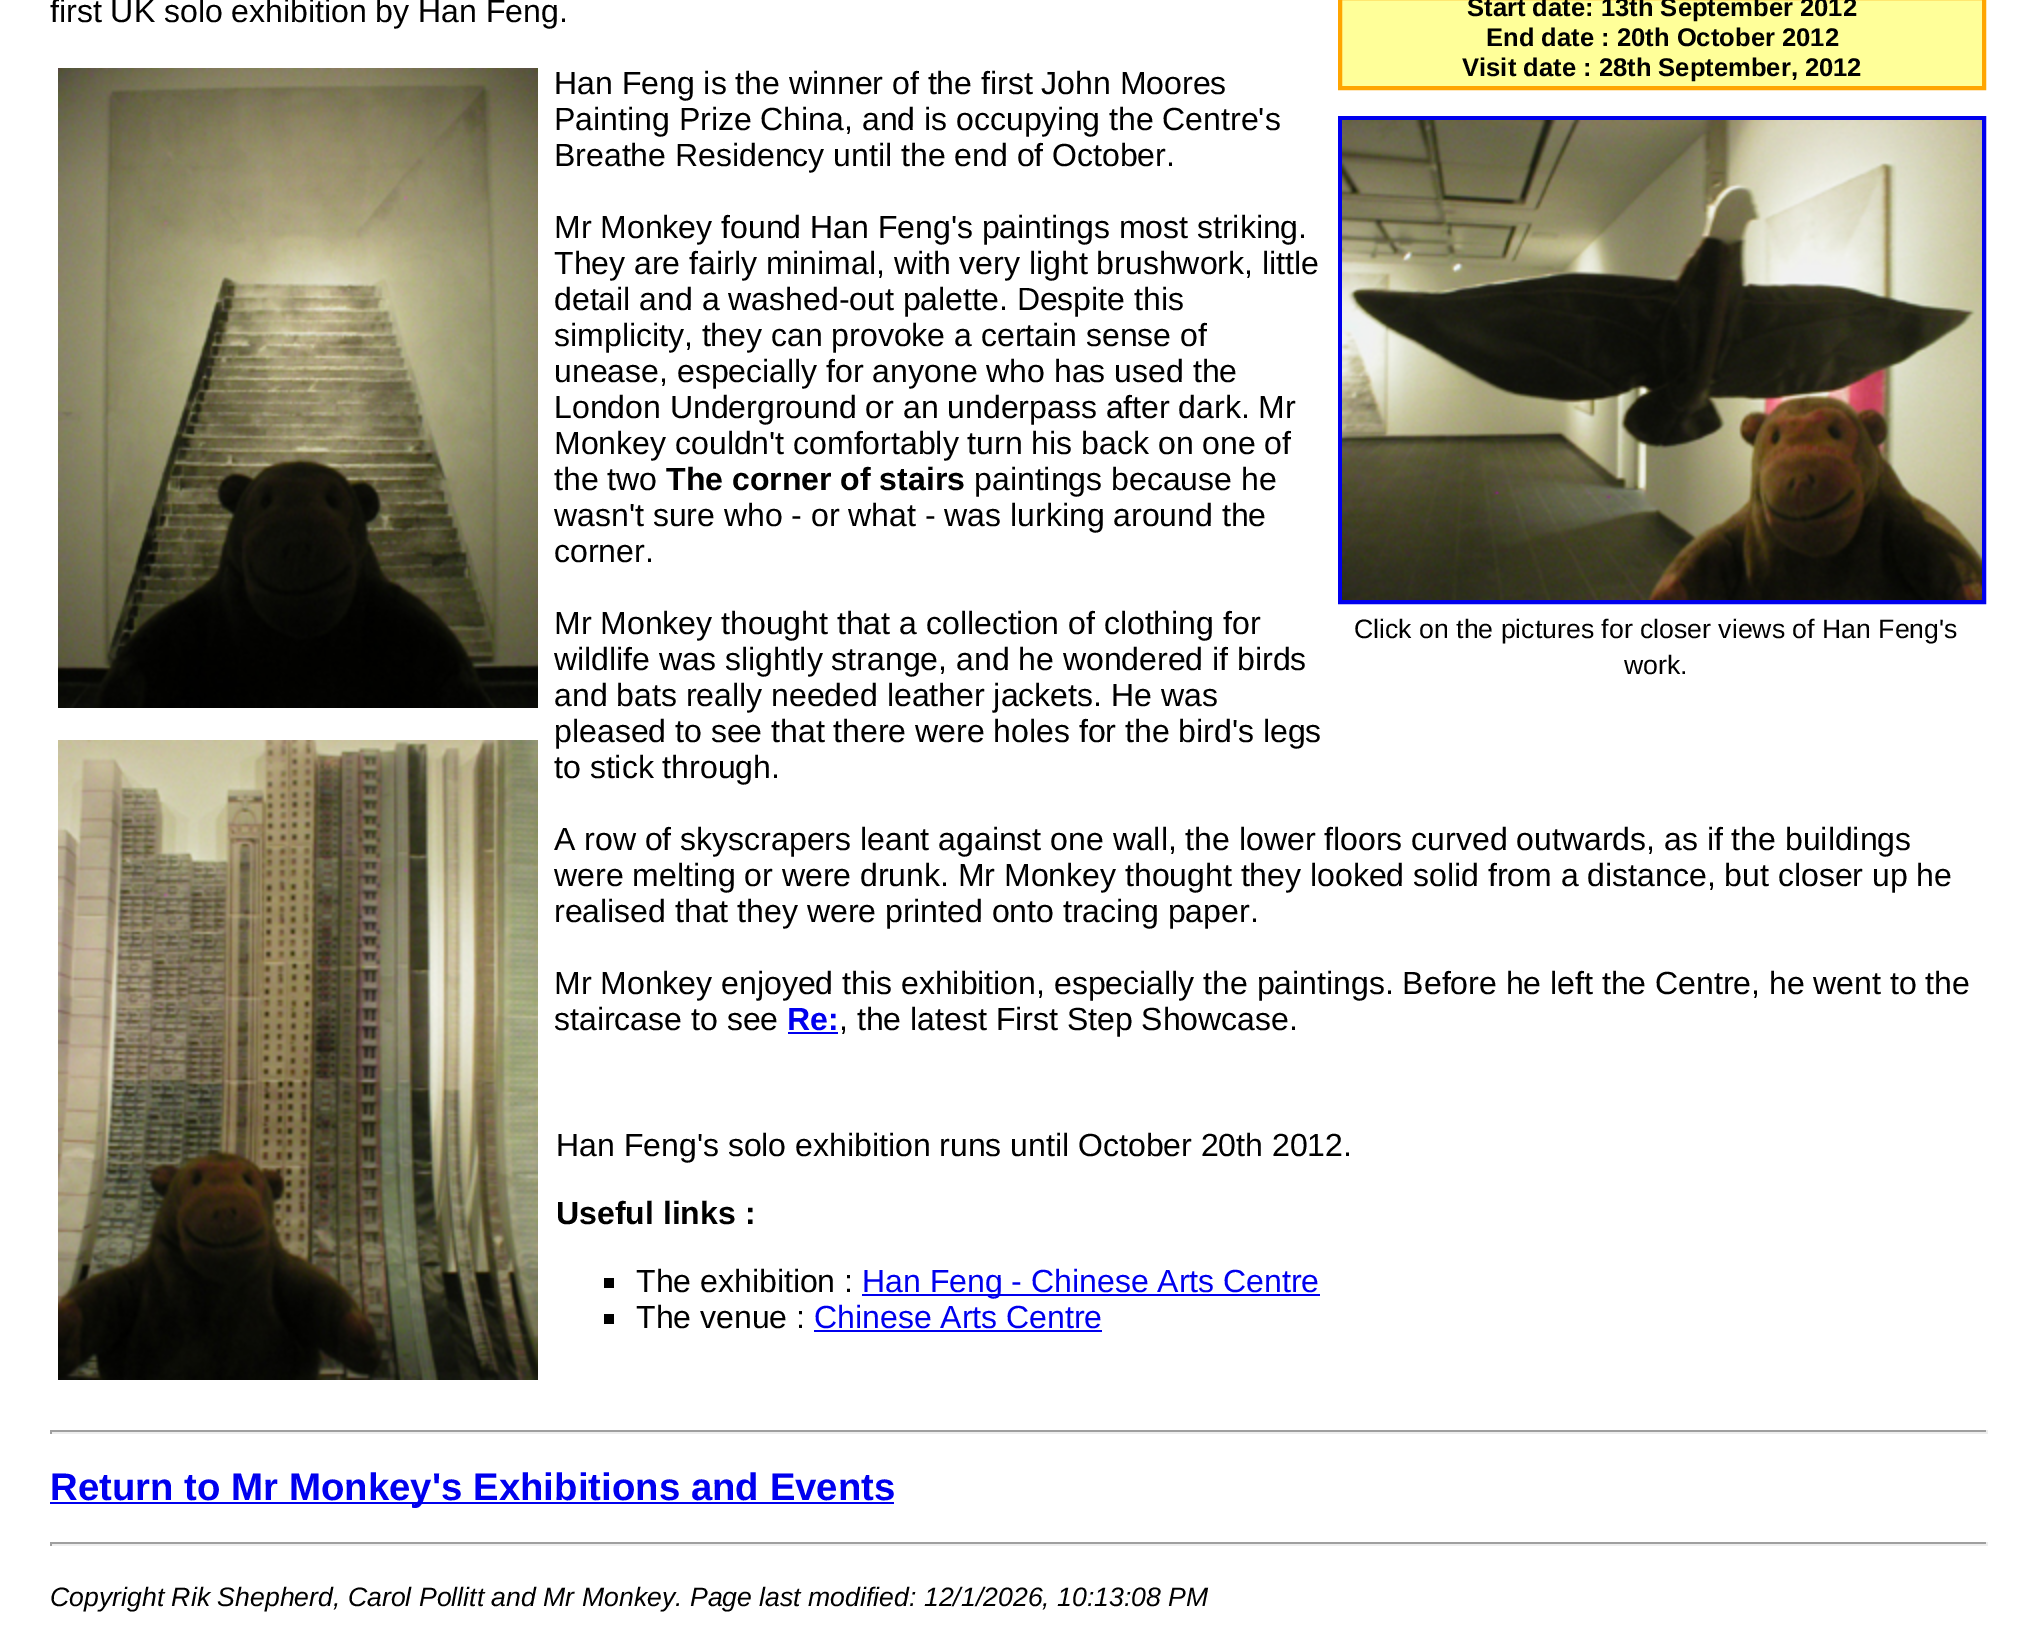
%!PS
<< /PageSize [2038 1646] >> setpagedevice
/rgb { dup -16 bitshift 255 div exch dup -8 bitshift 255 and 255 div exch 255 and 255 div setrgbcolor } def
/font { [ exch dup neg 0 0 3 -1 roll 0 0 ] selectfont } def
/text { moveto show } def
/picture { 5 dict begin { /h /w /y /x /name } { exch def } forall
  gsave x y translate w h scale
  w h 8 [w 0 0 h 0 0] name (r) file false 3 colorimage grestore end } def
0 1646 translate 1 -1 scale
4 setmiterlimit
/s1 { /LiberationSans-Regular 32 font 16#000000 rgb } def
/s2 { /LiberationSans-Bold 25.6 font 16#000000 rgb } def
/s3 { /LiberationSans-Regular 26.65 font 16#000000 rgb } def
/s4 { /LiberationSans-Bold 32 font 16#000000 rgb } def
/s5 { /LiberationSans-Bold 32 font 16#0000EE rgb } def
/s6 { /LiberationSans-Regular 32 font 16#0000EE rgb } def
/s7 { /LiberationSans-Bold 38.4 font 16#0000EE rgb } def
/s8 { /LiberationSans-Italic 26.65 font 16#000000 rgb } def
16#FFFFFF rgb
0 0 2038 1646 rectfill
s1
(first UK solo exhibition by Han Feng.) 50 22 text
16#FFFF99 rgb
1340 -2 moveto 1984 -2 lineto 1984 88 lineto 1340 88 lineto closepath gsave fill grestore
16#FFA500 rgb
4 setlinewidth
stroke
s2
(Start date: 13th September 2012) 1467 16 text
(End date : 20th October 2012) 1486 46 text
(Visit date : 28th September, 2012) 1462 76 text
16#0000EE rgb
1340 118 644 484 rectstroke
(pic1.raw) 1342 120 640 480 picture
s3
(Click on the pictures for closer views of Han Feng's) 1354 638 text
(work.) 1624 674 text
(pic2.raw) 58 68 480 640 picture
(pic3.raw) 58 740 480 640 picture
s1
(Han Feng is the winner of the first John Moores) 554 94 text
(Painting Prize China, and is occupying the Centre's) 554 130 text
(Breathe Residency until the end of October.) 554 166 text
(Mr Monkey found Han Feng's paintings most striking.) 554 238 text
(They are fairly minimal, with very light brushwork, little) 554 274 text
(detail and a washed-out palette. Despite this) 554 310 text
(simplicity, they can provoke a certain sense of) 554 346 text
(unease, especially for anyone who has used the) 554 382 text
(London Underground or an underpass after dark. Mr) 554 418 text
(Monkey couldn't comfortably turn his back on one of) 554 454 text
(the two) 554 490 text
s4
(The corner of stairs) 666 490 text
s1
(paintings because he) 974 490 text
(wasn't sure who - or what - was lurking around the) 554 526 text
(corner.) 554 562 text
(Mr Monkey thought that a collection of clothing for) 554 634 text
(wildlife was slightly strange, and he wondered if birds) 554 670 text
(and bats really needed leather jackets. He was) 554 706 text
(pleased to see that there were holes for the bird's legs) 554 742 text
(to stick through.) 554 778 text
(A row of skyscrapers leant against one wall, the lower floors curved outwards, as if the buildings) 554 850 text
(were melting or were drunk. Mr Monkey thought they looked solid from a distance, but closer up he) 554 886 text
(realised that they were printed onto tracing paper.) 554 922 text
(Mr Monkey enjoyed this exhibition, especially the paintings. Before he left the Centre, he went to the) 554 994 text
(staircase to see) 554 1030 text
s5
(Re:) 787 1030 text
788 1032 50 2 rectfill
s1
(, the latest First Step Showcase.) 839 1030 text
(Han Feng's solo exhibition runs until October 20th 2012.) 556 1156 text
s4
(Useful links :) 556 1224 text
604 1278 10 10 rectfill
s1
(The exhibition :) 636 1292 text
16#0000EE rgb
862 1294 458 2 rectfill
(Han Feng - Chinese Arts Centre) 862 1292 text
16#000000 rgb
604 1314 10 10 rectfill
(The venue :) 636 1328 text
s6
(Chinese Arts Centre) 814 1328 text
814 1330 288 2 rectfill
16#9F9F9F rgb
50 1430 1938 2 rectfill
16#EEEEEE rgb
1986 1430 2 4 rectfill
50 1432 1938 2 rectfill
16#9F9F9F rgb
50 1430 2 4 rectfill
16#0000EE rgb
50 1502 844 2 rectfill
s7
(Return to Mr Monkey's Exhibitions and Events) 50 1500 text
16#9F9F9F rgb
50 1542 1938 2 rectfill
16#EEEEEE rgb
1986 1542 2 4 rectfill
50 1544 1938 2 rectfill
16#9F9F9F rgb
50 1542 2 4 rectfill
s8
(Copyright Rik Shepherd, Carol Pollitt and Mr Monkey. Page last modified: 12/1/2026, 10:13:08 PM) 50 1606 text
showpage
